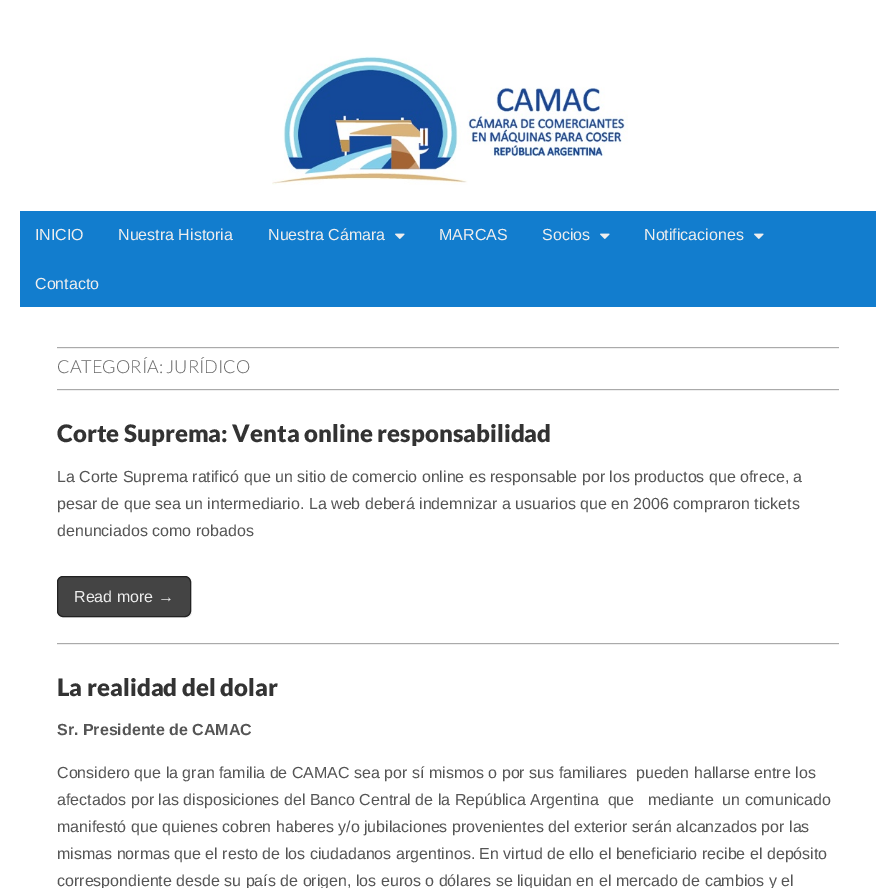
%!PS
<< /PageSize [896 888] >> setpagedevice
/rgb { dup -16 bitshift 255 div exch dup -8 bitshift 255 and 255 div exch 255 and 255 div setrgbcolor } def
/font { [ exch dup neg 0 0 3 -1 roll 0 0 ] selectfont } def
/text { moveto show } def
/roundrect { 5 dict begin { /r /h /w /y /x } { exch def } forall
  x r add y moveto x w add y 2 copy h add r arct x w add y h add x 1 index r arct
  x y h add x y r arct x y 2 copy exch w add exch r arct closepath end } def
/picture { 5 dict begin { /h /w /y /x /name } { exch def } forall
  gsave x y translate w h scale
  w h 8 [w 0 0 h 0 0] name (r) file false 3 colorimage grestore end } def
0 888 translate 1 -1 scale
4 setmiterlimit
/s1 { /LiberationSans-Regular 16 font 16#EEEEEE rgb } def
/s2 { /Lato-Light 18 font 16#666666 rgb } def
/s3 { /Lato-Black 24 font 16#333333 rgb } def
/s4 { /LiberationSans-Regular 16 font 16#555555 rgb } def
/s5 { /LiberationSans-Bold 16 font 16#555555 rgb } def
16#FFFFFF rgb
0 0 896 888 rectfill
(pic1.raw) 272 56 356 129 picture
16#127DCE rgb
20 211 856 96 rectfill
s1
(INICIO) 35 240 text
(Nuestra Historia) 118 240 text
(Nuestra Cámara) 268 240 text
(pic2.raw) 395 233 10 6 picture
(MARCAS) 439 240 text
(Socios) 542 240 text
(pic2.raw) 600 233 10 6 picture
(Notificaciones) 644 240 text
(pic2.raw) 754 233 10 6 picture
(Contacto) 35 289 text
57 390 782 1 rectfill
57 348 782 1 rectfill
16#AAAAAA rgb
57 347 782 1 rectfill
57 389 782 1 rectfill
s2
(CATEGORÍA: JURÍDICO) 57 373 text
16#EEEEEE rgb
57 644 782 1 rectfill
16#AAAAAA rgb
57 643 782 1 rectfill
s3
(Corte Suprema: Venta online responsabilidad) 57 442 text
s4
(La Corte Suprema ratificó que un sitio de comercio online es responsable por los productos que ofrece, a) 57 482 text
(pesar de que sea un intermediario. La web deberá indemnizar a usuarios que en 2006 compraron tickets) 57 509 text
(denunciados como robados) 57 536 text
16#EEEEEE rgb
59 616 moveto 60 617 62 618 64 618 curveto 186 618 lineto 189 618 192 615 192 612 curveto 192 583 lineto 192 581 191 579 190 578 curveto 191 579 191 581 191 582 curveto 191 611 lineto 191 614 188 617 185 617 curveto 63 617 lineto 62 617 60 617 59 616 curveto closepath fill
16#444444 rgb
57.5 576.5 133 40 5.5 roundrect gsave fill grestore
16#222222 rgb
stroke
s1
(Read more →) 74 602 text
s3
(La realidad del dolar) 57 696 text
s5
(Sr. Presidente de CAMAC) 57 735 text
s4
(Considero que la gran familia de CAMAC sea por sí mismos o por sus familiares  pueden hallarse entre los) 57 778 text
(afectados por las disposiciones del Banco Central de la República Argentina  que   mediante  un comunicado) 57 805 text
(manifestó que quienes cobren haberes y/o jubilaciones provenientes del exterior serán alcanzados por las) 57 832 text
(mismas normas que el resto de los ciudadanos argentinos. En virtud de ello el beneficiario recibe el depósito) 57 859 text
(correspondiente desde su país de origen, los euros o dólares se liquidan en el mercado de cambios y el) 57 886 text
showpage
